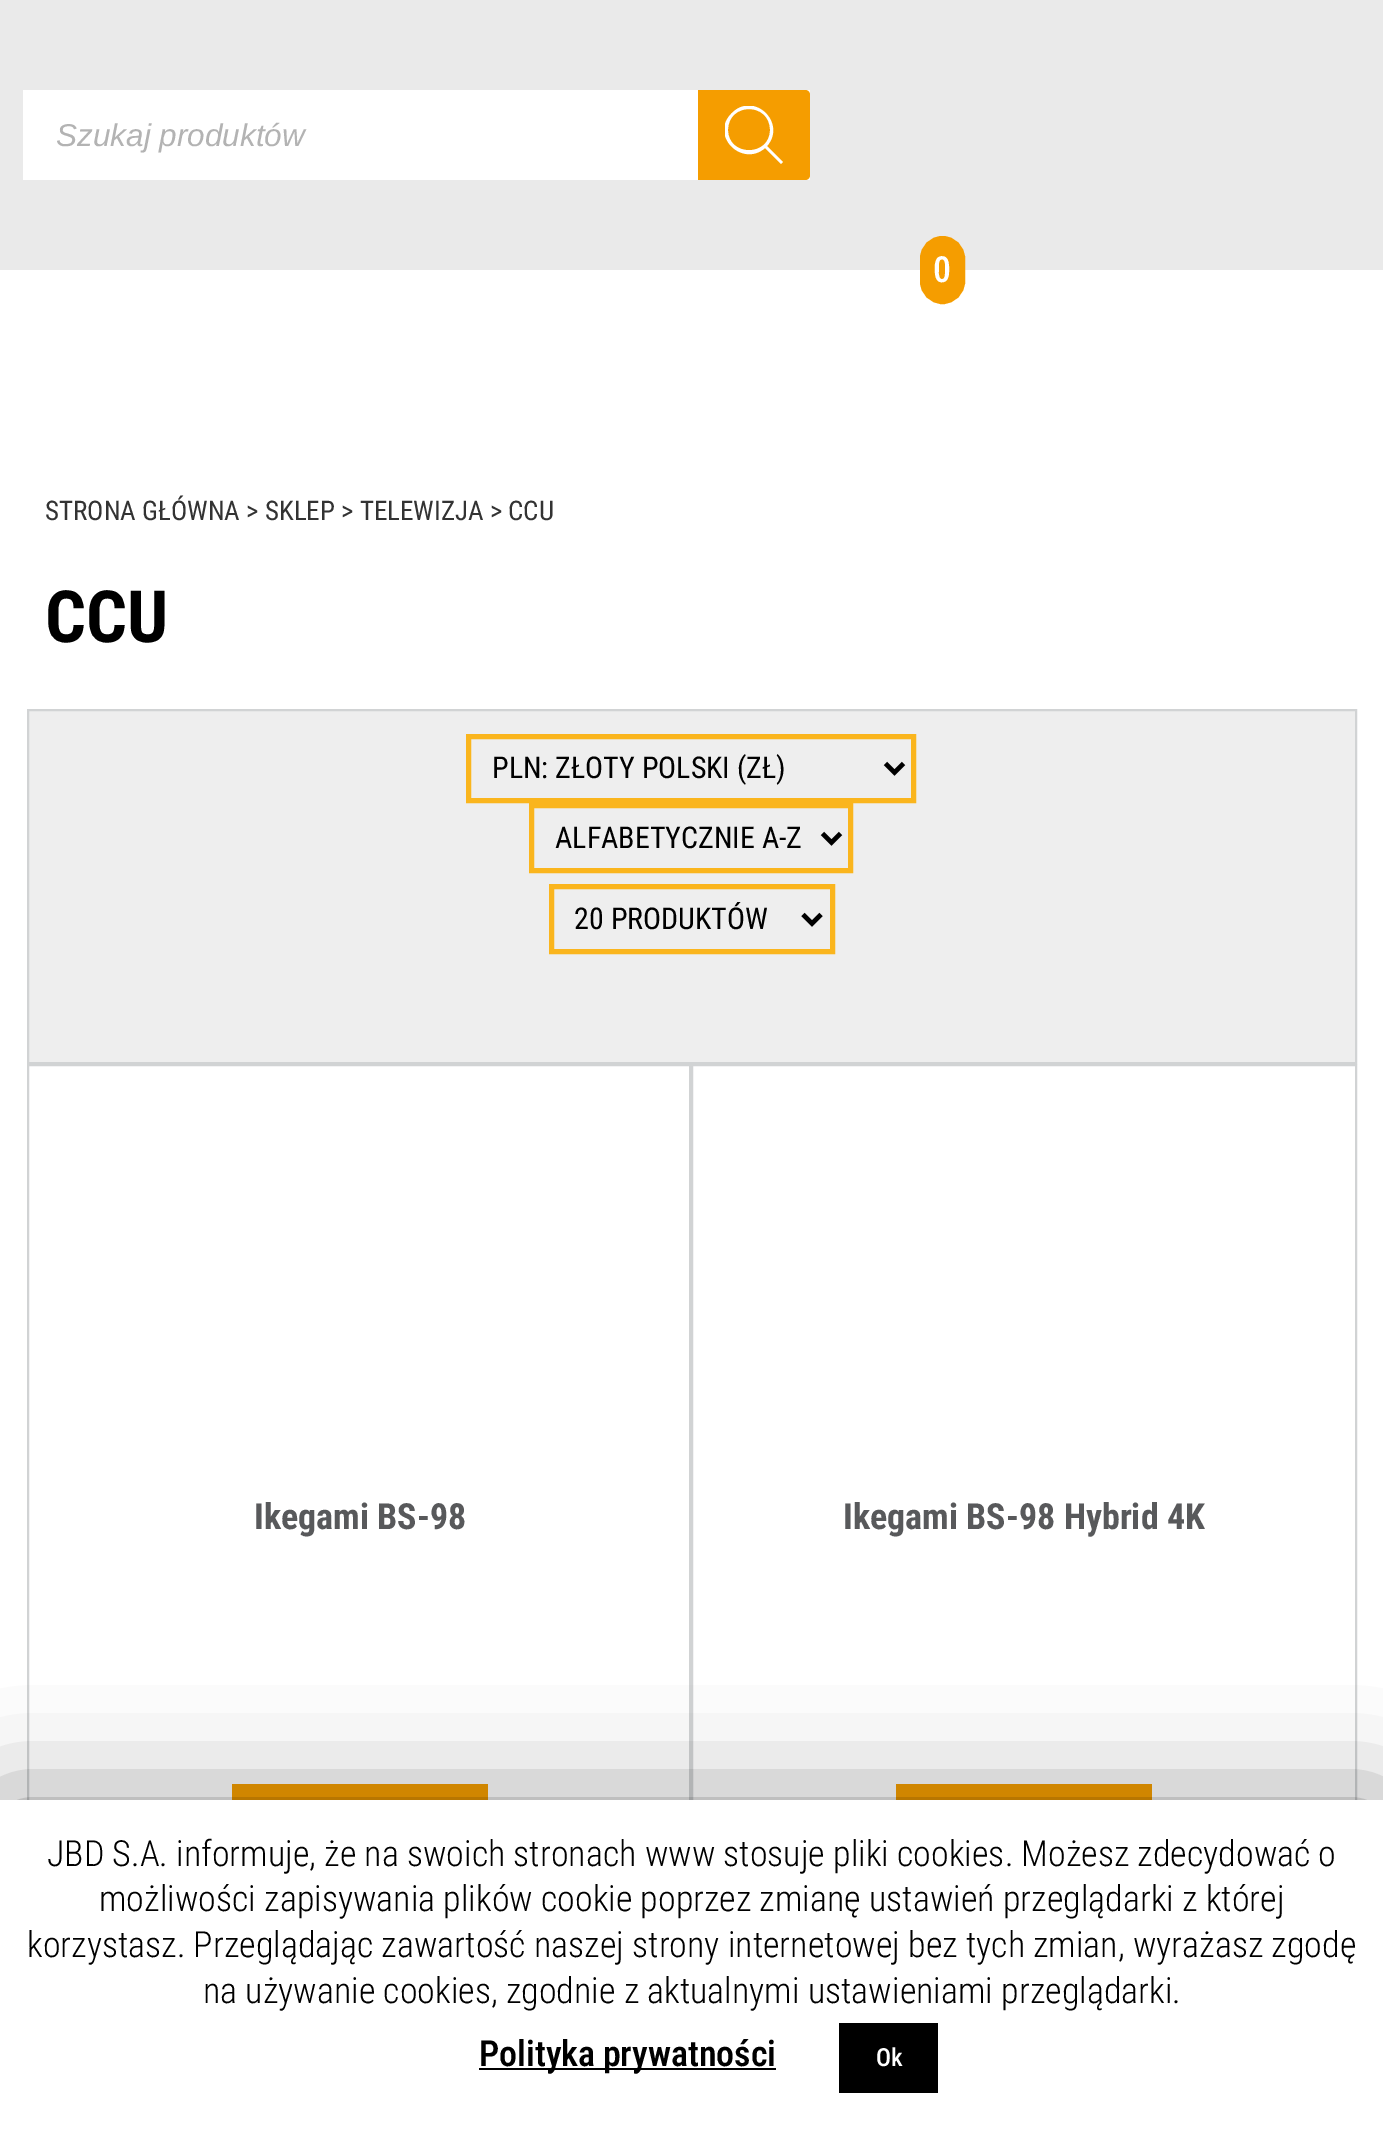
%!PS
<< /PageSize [1383 2131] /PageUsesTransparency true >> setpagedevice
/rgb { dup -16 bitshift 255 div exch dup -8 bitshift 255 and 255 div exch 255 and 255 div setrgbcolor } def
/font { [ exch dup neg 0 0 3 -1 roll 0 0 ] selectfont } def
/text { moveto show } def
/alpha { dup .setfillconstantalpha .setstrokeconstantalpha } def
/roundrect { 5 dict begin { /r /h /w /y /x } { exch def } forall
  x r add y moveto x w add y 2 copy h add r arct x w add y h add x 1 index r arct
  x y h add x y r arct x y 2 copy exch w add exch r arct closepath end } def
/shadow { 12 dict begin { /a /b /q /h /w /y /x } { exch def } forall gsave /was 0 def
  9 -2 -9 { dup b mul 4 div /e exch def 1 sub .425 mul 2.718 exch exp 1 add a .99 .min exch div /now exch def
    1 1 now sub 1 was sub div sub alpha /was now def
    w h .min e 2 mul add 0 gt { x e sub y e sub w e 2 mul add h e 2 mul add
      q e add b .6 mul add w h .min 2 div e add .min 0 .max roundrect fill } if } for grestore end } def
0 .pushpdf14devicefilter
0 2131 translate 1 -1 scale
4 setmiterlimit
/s1 { /LiberationSans-Italic 31.5 font 16#B3B3B3 rgb } def
/s2 { /RobotoCondensed-Medium 36 font 16#FFFFFF rgb } def
/s3 { /RobotoCondensed-Regular 27 font 16#333333 rgb } def
/s4 { /RobotoCondensed-Bold 72 font 16#000000 rgb } def
/s5 { /RobotoCondensed-Regular 30 font 16#000000 rgb } def
/s6 { /RobotoCondensed-Bold 36 font 16#58595B rgb } def
/s7 { /RobotoCondensed-Light 36 font 16#000000 rgb } def
/s8 { /RobotoCondensed-Medium 25 font 16#FFFFFF rgb } def
16#FFFFFF rgb
0 0 1383 2131 rectfill
16#EAEAEA rgb
0 0 1383 270 rectfill
16#FFFFFF rgb
23 90 787 90 rectfill
s1
(Szukaj produktów) 56 146 text
16#F59D00 rgb
698 90 moveto 805 90 lineto 808 90 810 92 810 95 curveto 810 175 lineto 810 178 808 180 805 180 curveto 698 180 lineto closepath fill
gsave
725 106 58 58 rectclip
16#FFFFFF rgb
783 162 moveto 767 146 lineto 787 123 754 91 732 113 curveto 709 135 742 168 765 148 curveto 781 164 lineto closepath 728 130 moveto 728 102 770 102 770 130 curveto 770 157 728 157 728 130 curveto closepath fill
grestore
921 237 43 66 21.5 roundrect gsave fill grestore
2 setlinewidth
stroke
s2
(0) 933 282 text
s3
(STRONA GŁÓWNA > SKLEP > TELEWIZJA > CCU) 45 520 text
s4
(CCU) 45 642 text
16#EEEEEE rgb
28 710 moveto 1356 710 lineto 1356 1063 lineto 28 1063 lineto closepath gsave fill grestore
16#D1D3D4 rgb
stroke
16#FAB51D rgb
5 setlinewidth
468.5 736.5 445 64 rectstroke
16#000000 rgb
4.5 setlinewidth
885.5 763.5 moveto 894.5 772.5 lineto 903.5 763.5 lineto stroke
s5
(PLN: ZŁOTY POLSKI \(ZŁ\)) 492 778 text
16#FAB51D rgb
5 setlinewidth
531.5 805.5 319 65 rectstroke
16#000000 rgb
4.5 setlinewidth
822.5 833.5 moveto 831.5 842.5 lineto 840.5 833.5 lineto stroke
(ALFABETYCZNIE A-Z) 555 848 text
16#FAB51D rgb
5 setlinewidth
551.5 886.5 281 65 rectstroke
16#000000 rgb
4.5 setlinewidth
803 914.5 moveto 812 923.5 lineto 821 914.5 lineto stroke
(20 PRODUKTÓW) 574 929 text
16#D1D3D4 rgb
2 setlinewidth
28 1065 662 943 rectstroke
s6
(Ikegami BS-98) 254 1529 text
16#F59D00 rgb
232 1784 256 16 rectfill
16#D1D3D4 rgb
692 1065 664 943 rectstroke
s6
(Ikegami BS-98 Hybrid 4K) 843 1529 text
16#F59D00 rgb
896 1784 256 16 rectfill
16#000000 rgb
0 1811 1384 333 0 56 0.5 shadow
16#FFFFFF rgb
0 1800 1383 331 rectfill
s7
(JBD S.A. informuje, że na swoich stronach www stosuje pliki cookies. Możesz zdecydować o) 47 1866 text
(możliwości zapisywania plików cookie poprzez zmianę ustawień przeglądarki z której) 99 1911 text
(korzystasz. Przeglądając zawartość naszej strony internetowej bez tych zmian, wyrażasz zgodę) 27 1957 text
(na używanie cookies, zgodnie z aktualnymi ustawieniami przeglądarki.) 203 2003 text
479 2068 297 2 rectfill
/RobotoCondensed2-Medium 36 font
479 2066 moveto -1 0 32 (Polityka prywatności) widthshow
839 2023 99 70 rectfill
s8
(Ok) 876 2066 text
.poppdf14devicefilter showpage
